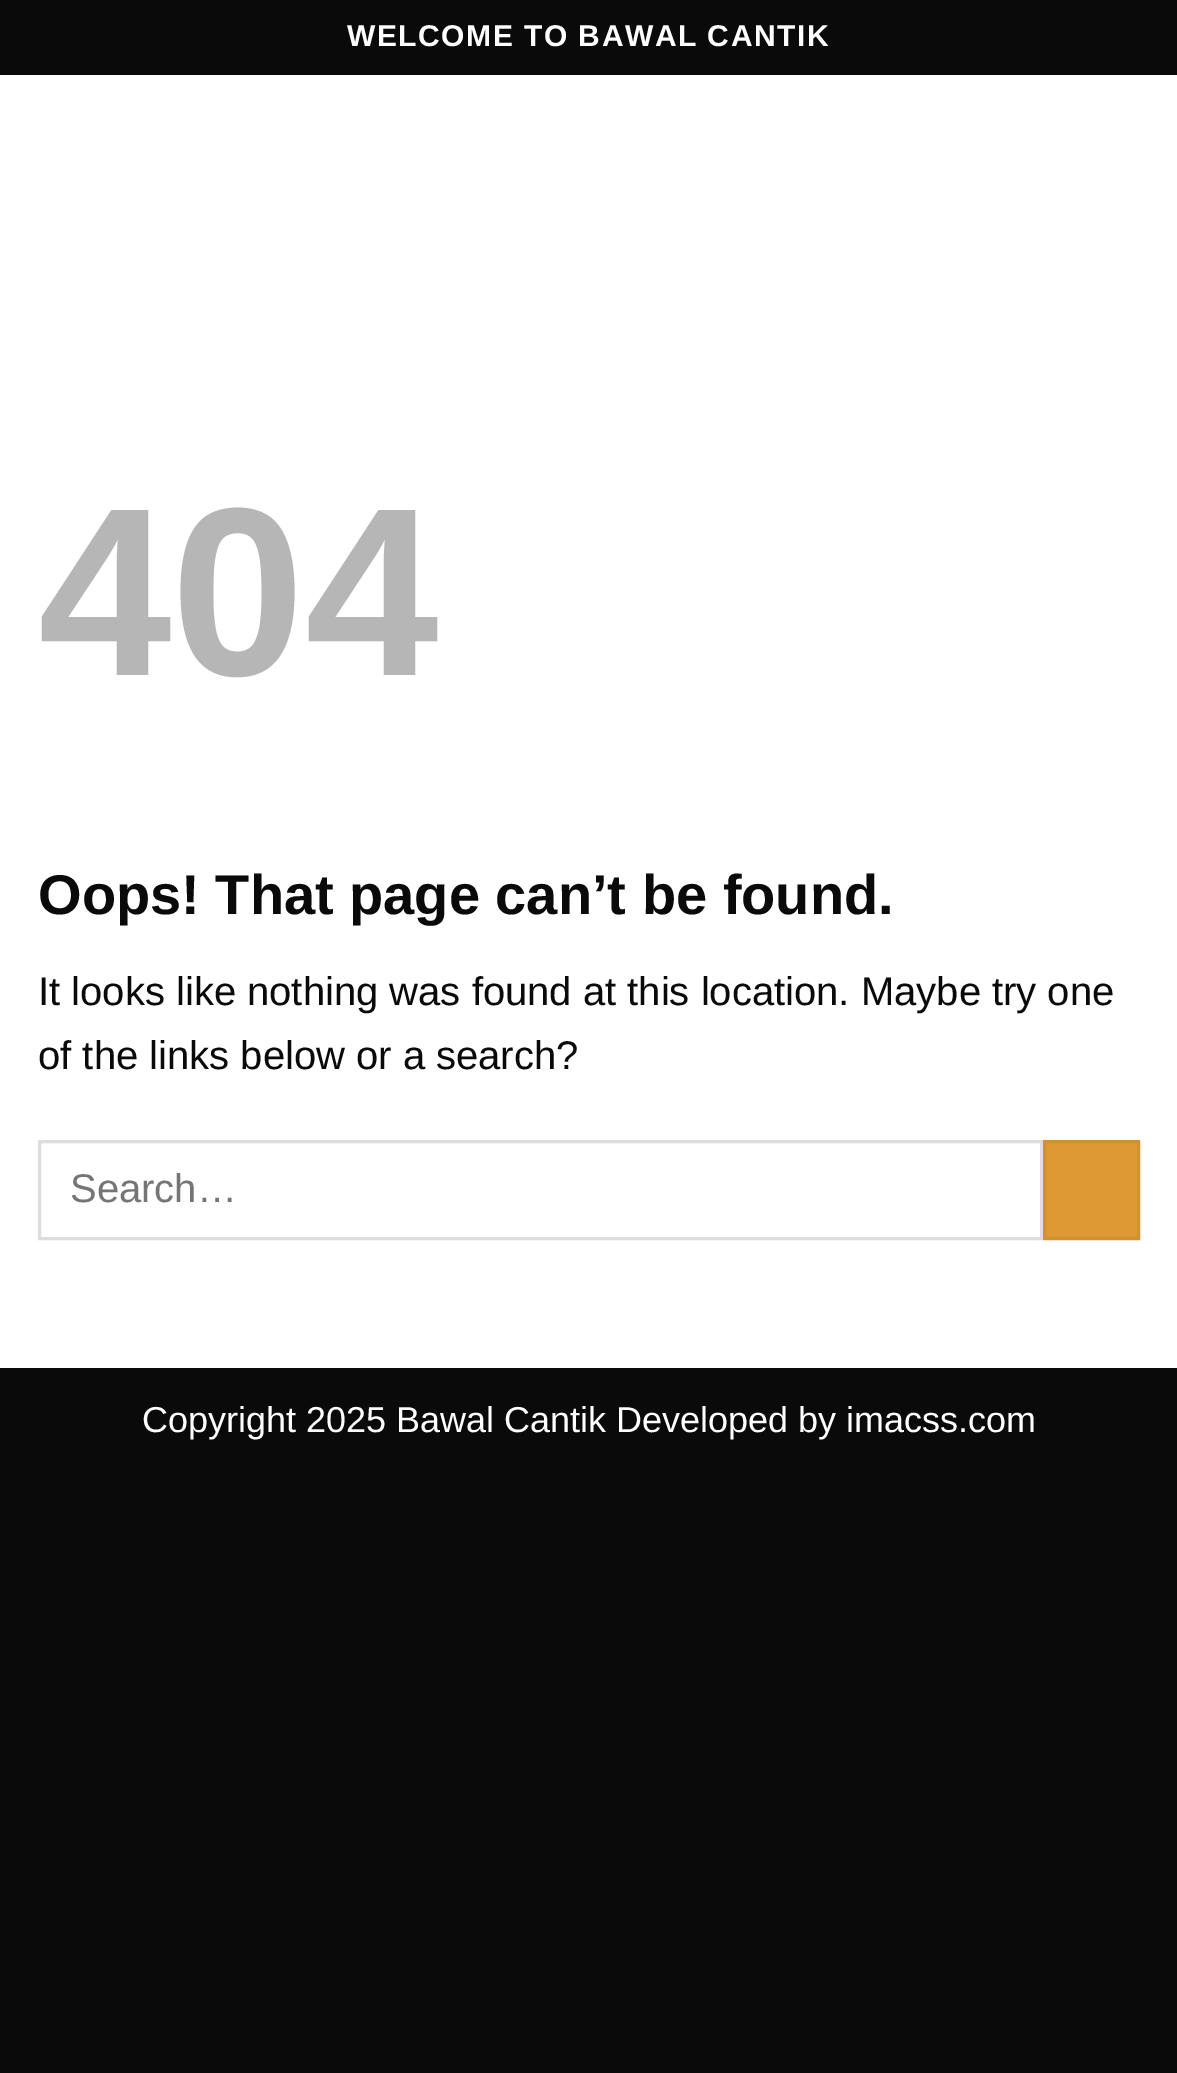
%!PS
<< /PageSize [1177 2073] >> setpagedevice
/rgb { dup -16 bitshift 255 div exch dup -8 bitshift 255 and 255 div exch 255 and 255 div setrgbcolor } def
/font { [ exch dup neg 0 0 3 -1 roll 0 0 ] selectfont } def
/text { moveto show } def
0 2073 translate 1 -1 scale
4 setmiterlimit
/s1 { /LiberationSans-Bold 240 font 16#B6B6B6 rgb } def
/s2 { /LiberationSans-Bold 56 font 16#0A0A0A rgb } def
/s3 { /LiberationSans-Regular 40 font 16#0A0A0A rgb } def
/s4 { /LiberationSans-Regular 40 font 16#757575 rgb } def
/s5 { /LiberationSans-Regular 36 font 16#FFFFFF rgb } def
16#0A0A0A rgb
0 0 1177 2073 rectfill
16#FFFFFF rgb
0 75 1177 1293 rectfill
/LiberationSans-Bold 30 font
347 46 moveto 1.5 0 (WELCOME TO BAWAL CANTIK) ashow
s1
(404) 38 675 text
s2
(Oops! That page can’t be found.) 38 914 text
s3
(It looks like nothing was found at this location. Maybe try one) 38 1005 text
(of the links below or a search?) 38 1069 text
16#DDDDDD rgb
3 setlinewidth
39.5 1141.5 1002 97 rectstroke
s4
(Search…) 70 1202 text
16#DD9933 rgb
1044.5 1141.5 moveto 1138.5 1141.5 lineto 1138.5 1238.5 lineto 1044.5 1238.5 lineto closepath gsave fill grestore
16#D29130 rgb
stroke
s5
(Copyright 2025 Bawal Cantik Developed by imacss.com) 142 1432 text
showpage
